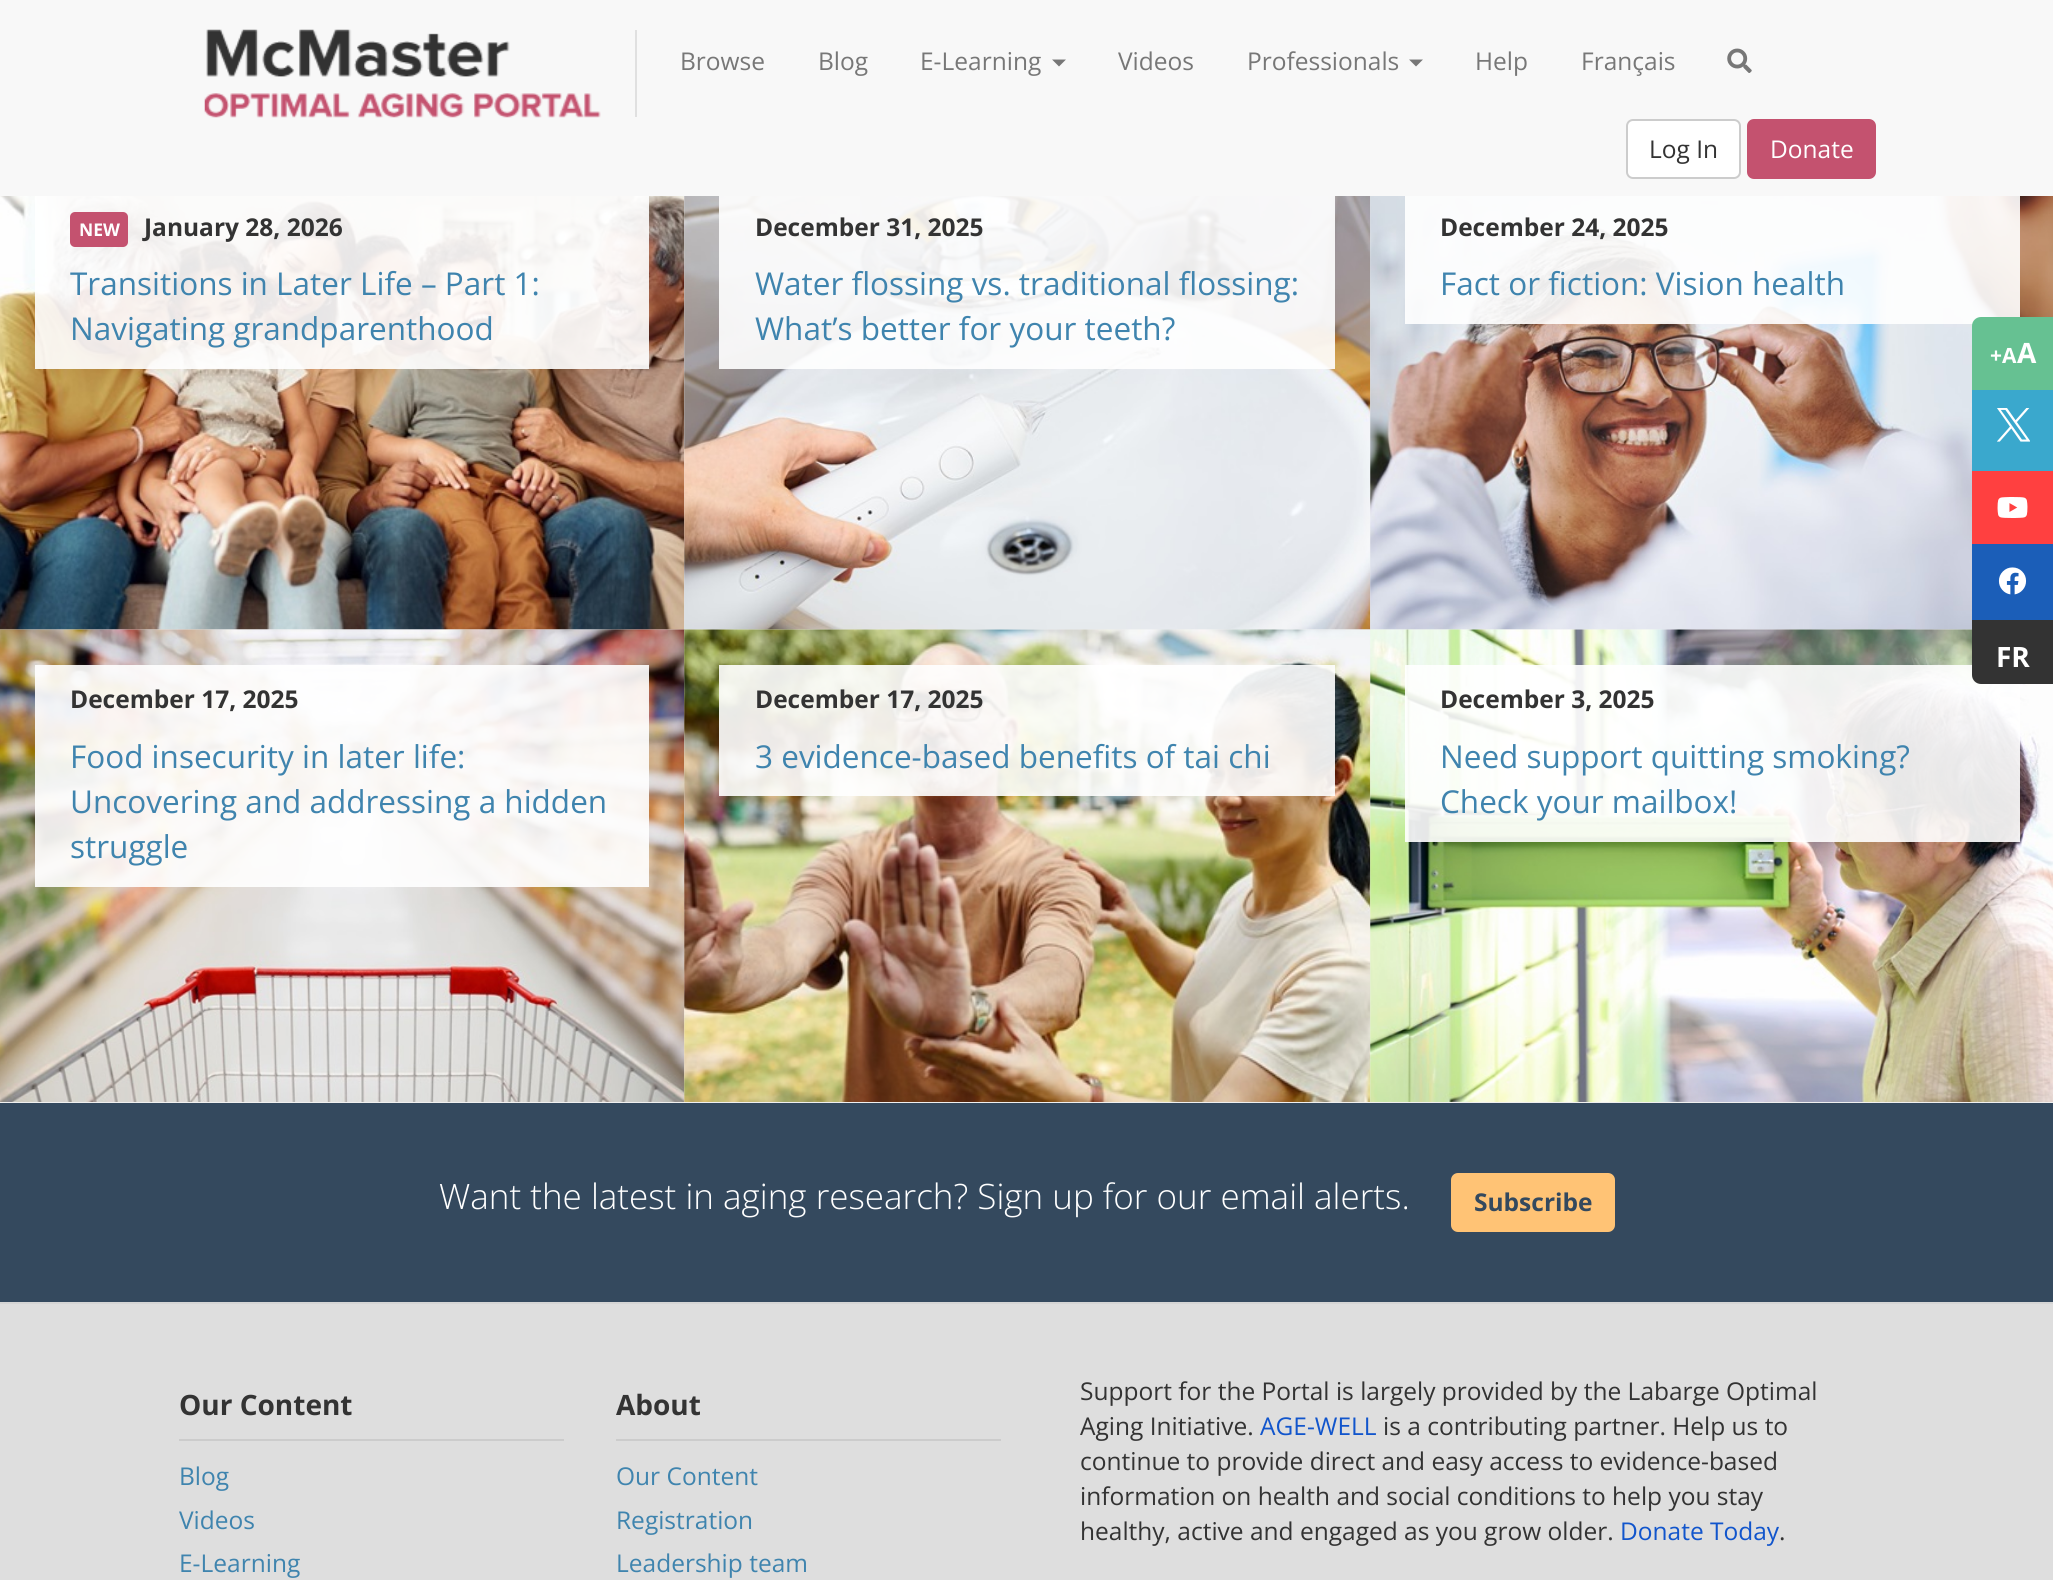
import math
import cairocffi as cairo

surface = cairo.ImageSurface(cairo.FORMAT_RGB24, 2053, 1580)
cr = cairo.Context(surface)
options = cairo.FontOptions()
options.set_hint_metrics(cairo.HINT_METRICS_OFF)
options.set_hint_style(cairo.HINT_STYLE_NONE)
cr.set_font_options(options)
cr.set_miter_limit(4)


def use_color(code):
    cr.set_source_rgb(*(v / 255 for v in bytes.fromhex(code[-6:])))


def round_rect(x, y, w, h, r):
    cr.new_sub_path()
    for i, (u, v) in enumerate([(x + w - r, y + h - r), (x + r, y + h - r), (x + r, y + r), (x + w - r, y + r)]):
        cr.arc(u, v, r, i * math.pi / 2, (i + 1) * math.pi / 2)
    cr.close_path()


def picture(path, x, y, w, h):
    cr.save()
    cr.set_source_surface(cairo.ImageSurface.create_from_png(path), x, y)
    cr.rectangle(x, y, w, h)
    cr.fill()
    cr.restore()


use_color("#f0f0f0")
cr.paint()
use_color("#f8f8f8")
cr.rectangle(0, 0, 2053, 196)
cr.fill()
use_color("#e0e0e0")
cr.rectangle(635, 30, 2, 87)
cr.fill()
picture("img1.png", 204, 29, 397, 89)
cr.select_font_face("Open Sans")
cr.set_font_size(24.5)
use_color("#777777")
cr.move_to(680, 70)
cr.show_text("Browse")
cr.move_to(818, 70)
cr.show_text("Blog")
cr.move_to(920, 70)
cr.show_text("E-Learning")
cr.new_path()
cr.move_to(1052, 59.5)
cr.line_to(1066, 59.5)
cr.line_to(1059, 66.5)
cr.close_path()
cr.fill()
cr.move_to(1118, 70)
cr.show_text("Videos")
cr.move_to(1247, 70)
cr.show_text("Professionals")
cr.new_path()
cr.move_to(1409, 59.5)
cr.line_to(1423, 59.5)
cr.line_to(1416, 66.5)
cr.close_path()
cr.fill()
cr.move_to(1475, 70)
cr.show_text("Help")
cr.move_to(1581, 70)
cr.show_text("Français")
picture("img2.png", 1727, 48, 25, 25)
use_color("#ffffff")
round_rect(1627, 120, 113, 58, 6)
cr.fill_preserve()
use_color("#cccccc")
cr.stroke()
use_color("#333333")
cr.move_to(1649, 158)
cr.show_text("Log In")
use_color("#c4526f")
round_rect(1748, 120, 127, 58, 6)
cr.fill_preserve()
cr.stroke()
use_color("#ffffff")
cr.move_to(1770, 158)
cr.show_text("Donate")
picture("img3.png", 0, 196, 685, 434)
cr.set_source_rgba(1, 1, 1, 0.9)
cr.rectangle(35, 196, 614, 173)
cr.fill()
use_color("#c4526f")
round_rect(70, 212, 58, 35, 5)
cr.fill()
cr.select_font_face("Open Sans", cairo.FONT_SLANT_NORMAL, cairo.FONT_WEIGHT_BOLD)
cr.set_font_size(17.5)
use_color("#ffffff")
cr.move_to(79, 236)
cr.show_text("NEW")
cr.set_font_size(24.5)
use_color("#333333")
cr.move_to(144, 236)
cr.show_text("January 28, 2026")
cr.select_font_face("Open Sans")
cr.set_font_size(31.5)
use_color("#3f84ae")
cr.move_to(70, 295)
cr.show_text("Transitions in Later Life – Part 1:")
cr.move_to(70, 340)
cr.show_text("Navigating grandparenthood")
picture("img4.png", 684, 196, 687, 434)
cr.set_source_rgba(1, 1, 1, 0.9)
cr.rectangle(719, 196, 616, 173)
cr.fill()
cr.select_font_face("Open Sans", cairo.FONT_SLANT_NORMAL, cairo.FONT_WEIGHT_BOLD)
cr.set_font_size(24.5)
use_color("#333333")
cr.move_to(755, 236)
cr.show_text("December 31, 2025")
cr.select_font_face("Open Sans")
cr.set_font_size(31.5)
use_color("#3f84ae")
cr.move_to(755, 295)
cr.show_text("Water flossing vs. traditional flossing:")
cr.move_to(755, 340)
cr.show_text("What’s better for your teeth?")
picture("img5.png", 1370, 196, 683, 434)
cr.set_source_rgba(1, 1, 1, 0.9)
cr.rectangle(1405, 196, 615, 128)
cr.fill()
cr.select_font_face("Open Sans", cairo.FONT_SLANT_NORMAL, cairo.FONT_WEIGHT_BOLD)
cr.set_font_size(24.5)
use_color("#333333")
cr.move_to(1440, 236)
cr.show_text("December 24, 2025")
cr.select_font_face("Open Sans")
cr.set_font_size(31.5)
use_color("#3f84ae")
cr.move_to(1440, 295)
cr.show_text("Fact or fiction: Vision health")
picture("img6.png", 0, 629, 685, 473)
cr.set_source_rgba(1, 1, 1, 0.9)
cr.rectangle(35, 665, 614, 222)
cr.fill()
cr.select_font_face("Open Sans", cairo.FONT_SLANT_NORMAL, cairo.FONT_WEIGHT_BOLD)
cr.set_font_size(24.5)
use_color("#333333")
cr.move_to(70, 708)
cr.show_text("December 17, 2025")
cr.select_font_face("Open Sans")
cr.set_font_size(31.5)
use_color("#3f84ae")
cr.move_to(70, 768)
cr.show_text("Food insecurity in later life:")
cr.move_to(70, 813)
cr.show_text("Uncovering and addressing a hidden")
cr.move_to(70, 858)
cr.show_text("struggle")
picture("img7.png", 684, 629, 687, 473)
cr.set_source_rgba(1, 1, 1, 0.9)
cr.rectangle(719, 665, 616, 131)
cr.fill()
cr.select_font_face("Open Sans", cairo.FONT_SLANT_NORMAL, cairo.FONT_WEIGHT_BOLD)
cr.set_font_size(24.5)
use_color("#333333")
cr.move_to(755, 708)
cr.show_text("December 17, 2025")
cr.select_font_face("Open Sans")
cr.set_font_size(31.5)
use_color("#3f84ae")
cr.move_to(755, 768)
cr.show_text("3 evidence-based benefits of tai chi")
picture("img8.png", 1370, 629, 683, 473)
cr.set_source_rgba(1, 1, 1, 0.9)
cr.rectangle(1405, 665, 615, 177)
cr.fill()
cr.select_font_face("Open Sans", cairo.FONT_SLANT_NORMAL, cairo.FONT_WEIGHT_BOLD)
cr.set_font_size(24.5)
use_color("#333333")
cr.move_to(1440, 708)
cr.show_text("December 3, 2025")
cr.select_font_face("Open Sans")
cr.set_font_size(31.5)
use_color("#3f84ae")
cr.move_to(1440, 768)
cr.show_text("Need support quitting smoking?")
cr.move_to(1440, 813)
cr.show_text("Check your mailbox!")
use_color("#66c192")
cr.new_path()
cr.move_to(1981, 317)
cr.line_to(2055, 317)
cr.line_to(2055, 390)
cr.line_to(1972, 390)
cr.line_to(1972, 326)
cr.curve_to(1972, 321, 1976, 317, 1981, 317)
cr.close_path()
cr.fill()
cr.select_font_face("Open Sans", cairo.FONT_SLANT_NORMAL, cairo.FONT_WEIGHT_BOLD)
cr.set_font_size(21)
use_color("#ffffff")
cr.move_to(1990, 363)
cr.show_text("+A")
cr.set_font_size(28)
cr.move_to(2017, 363)
cr.show_text("A")
use_color("#3aa8cd")
cr.rectangle(1972, 390, 81, 81)
cr.fill()
picture("img9.png", 1997, 408, 33, 34)
use_color("#ff4040")
cr.rectangle(1972, 471, 81, 73)
cr.fill()
picture("img10.png", 1997, 497, 31, 21)
use_color("#1b5eb8")
cr.rectangle(1972, 544, 81, 76)
cr.fill()
picture("img11.png", 1998, 567, 29, 28)
use_color("#333333")
cr.new_path()
cr.move_to(1972, 620)
cr.line_to(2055, 620)
cr.line_to(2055, 684)
cr.line_to(1981, 684)
cr.curve_to(1976, 684, 1972, 680, 1972, 675)
cr.close_path()
cr.fill()
use_color("#ffffff")
cr.move_to(1996, 667)
cr.show_text("FR")
use_color("#34495e")
cr.rectangle(0, 1103, 2053, 199)
cr.fill()
cr.select_font_face("Open Sans Light")
cr.set_font_size(35)
use_color("#ffffff")
cr.move_to(439, 1209)
cr.show_text("Want the latest in aging research? Sign up for our email alerts.")
use_color("#ffc375")
round_rect(1452, 1174, 162, 57, 6)
cr.fill_preserve()
cr.stroke()
cr.select_font_face("Open Sans", cairo.FONT_SLANT_NORMAL, cairo.FONT_WEIGHT_BOLD)
cr.set_font_size(24.5)
use_color("#34495e")
cr.move_to(1474, 1211)
cr.show_text("Subscribe")
use_color("#dedede")
cr.rectangle(0, 1304, 2053, 276)
cr.fill()
use_color("#d5d5d5")
cr.rectangle(0, 1302, 2053, 2)
cr.fill()
use_color("#cccccc")
cr.rectangle(179, 1439, 385, 2)
cr.fill()
cr.set_font_size(28)
use_color("#333333")
cr.move_to(179, 1415)
cr.show_text("Our Content")
cr.select_font_face("Open Sans")
cr.set_font_size(24.5)
use_color("#3f84ae")
cr.move_to(179, 1485)
cr.show_text("Blog")
cr.move_to(179, 1529)
cr.show_text("Videos")
cr.move_to(179, 1572)
cr.show_text("E-Learning")
use_color("#cccccc")
cr.rectangle(616, 1439, 385, 2)
cr.fill()
cr.select_font_face("Open Sans", cairo.FONT_SLANT_NORMAL, cairo.FONT_WEIGHT_BOLD)
cr.set_font_size(28)
use_color("#333333")
cr.move_to(616, 1415)
cr.show_text("About")
cr.select_font_face("Open Sans")
cr.set_font_size(24.5)
use_color("#3f84ae")
cr.move_to(616, 1485)
cr.show_text("Our Content")
cr.move_to(616, 1529)
cr.show_text("Registration")
cr.move_to(616, 1572)
cr.show_text("Leadership team")
use_color("#333333")
cr.move_to(1080, 1400)
cr.show_text("Support for the Portal is largely provided by the Labarge Optimal")
cr.move_to(1080, 1435)
cr.show_text("Aging Initiative.")
use_color("#1155cc")
cr.move_to(1260, 1435)
cr.show_text("AGE-WELL")
use_color("#333333")
cr.move_to(1383, 1435)
cr.show_text("is a contributing partner. Help us to")
cr.move_to(1080, 1470)
cr.show_text("continue to provide direct and easy access to evidence-based")
cr.move_to(1080, 1505)
cr.show_text("information on health and social conditions to help you stay")
cr.move_to(1080, 1540)
cr.show_text("healthy, active and engaged as you grow older.")
use_color("#1155cc")
cr.move_to(1620, 1540)
cr.show_text("Donate Today")
use_color("#333333")
cr.move_to(1779, 1540)
cr.show_text(".")
surface.write_to_png("result.png")
